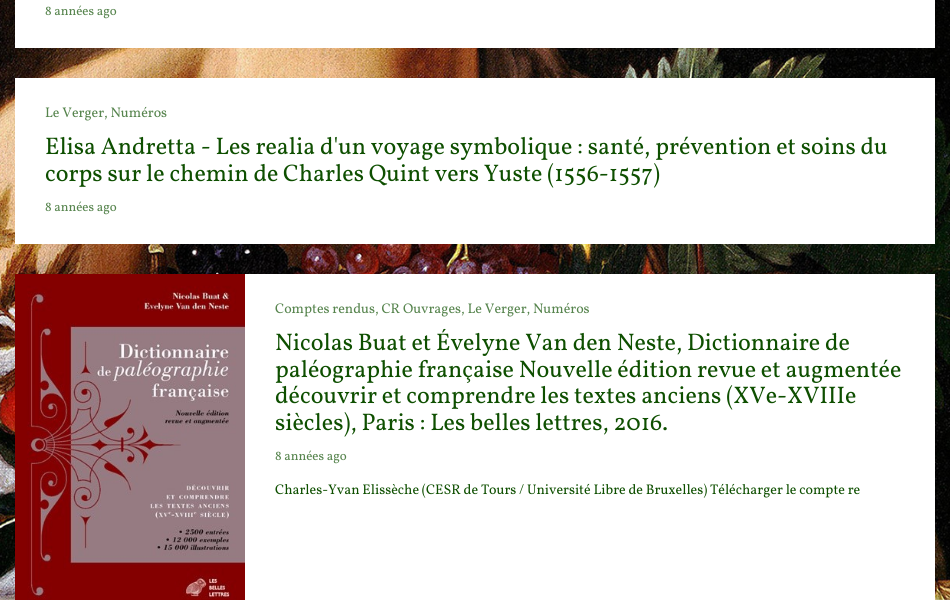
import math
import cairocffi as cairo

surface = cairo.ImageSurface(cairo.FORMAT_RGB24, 950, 600)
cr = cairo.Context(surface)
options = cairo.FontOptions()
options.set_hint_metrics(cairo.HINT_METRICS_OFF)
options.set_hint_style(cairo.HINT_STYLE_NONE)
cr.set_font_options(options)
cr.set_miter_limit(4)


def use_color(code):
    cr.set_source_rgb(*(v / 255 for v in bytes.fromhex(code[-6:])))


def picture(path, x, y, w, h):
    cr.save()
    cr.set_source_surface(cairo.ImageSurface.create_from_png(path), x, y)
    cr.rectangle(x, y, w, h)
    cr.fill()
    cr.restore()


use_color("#ffffff")
cr.paint()
picture("img1.png", 0, 0, 950, 600)
use_color("#ffffff")
cr.rectangle(15, 0, 920, 48)
cr.fill()
cr.select_font_face("Vollkorn")
cr.set_font_size(13)
use_color("#56844d")
cr.move_to(45, 15)
cr.show_text("8 années ago")
use_color("#ffffff")
cr.rectangle(15, 78, 920, 166)
cr.fill()
cr.set_font_size(14)
use_color("#56844d")
cr.move_to(45, 117)
cr.show_text("Le Verger, Numéros")
cr.set_font_size(24)
use_color("#0e4f00")
cr.move_to(45, 154)
cr.show_text("Elisa Andretta - Les realia d'un voyage symbolique : santé, prévention et soins du")
cr.move_to(45, 181)
cr.show_text("corps sur le chemin de Charles Quint vers Yuste (1556-1557)")
cr.set_font_size(13)
use_color("#56844d")
cr.move_to(45, 211)
cr.show_text("8 années ago")
use_color("#ffffff")
cr.rectangle(245, 274, 690, 326)
cr.fill()
picture("img2.png", 15, 274, 230, 326)
cr.set_font_size(14)
use_color("#56844d")
cr.move_to(275, 313)
cr.show_text("Comptes rendus, CR Ouvrages, Le Verger, Numéros")
cr.set_font_size(24)
use_color("#0e4f00")
cr.move_to(275, 350)
cr.show_text("Nicolas Buat et Évelyne Van den Neste, Dictionnaire de")
cr.move_to(275, 377)
cr.show_text("paléographie française Nouvelle édition revue et augmentée")
cr.move_to(275, 403)
cr.show_text("découvrir et comprendre les textes anciens (XVe-XVIIIe")
cr.move_to(275, 430)
cr.show_text("siècles), Paris : Les belles lettres, 2016.")
cr.set_font_size(13)
use_color("#56844d")
cr.move_to(275, 460)
cr.show_text("8 années ago")
cr.set_font_size(14)
use_color("#0e4f00")
cr.move_to(275, 494)
cr.show_text("Charles-Yvan Elissèche (CESR de Tours / Université Libre de Bruxelles) Télécharger le compte re")
surface.write_to_png("result.png")
